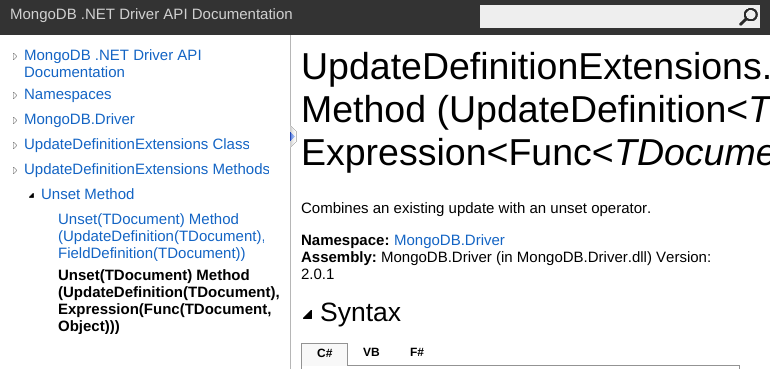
import math
import cairocffi as cairo

surface = cairo.ImageSurface(cairo.FORMAT_RGB24, 770, 369)
cr = cairo.Context(surface)
options = cairo.FontOptions()
options.set_hint_metrics(cairo.HINT_METRICS_OFF)
options.set_hint_style(cairo.HINT_STYLE_NONE)
cr.set_font_options(options)
cr.set_miter_limit(4)


def use_color(code):
    cr.set_source_rgb(*(v / 255 for v in bytes.fromhex(code[-6:])))


def picture(path, x, y, w, h):
    cr.save()
    cr.set_source_surface(cairo.ImageSurface.create_from_png(path), x, y)
    cr.rectangle(x, y, w, h)
    cr.fill()
    cr.restore()


use_color("#ffffff")
cr.paint()
use_color("#333333")
cr.rectangle(0, 0, 770, 35)
cr.fill()
cr.select_font_face("Liberation Sans")
cr.set_font_size(15)
use_color("#d0d0d0")
cr.move_to(10, 19)
cr.show_text("MongoDB .NET Driver API Documentation")
use_color("#eeeeee")
cr.rectangle(480, 5, 280, 23)
cr.fill()
picture("img1.png", 739, 8, 19, 18)
use_color("#b6b6b6")
cr.rectangle(290, 35, 1, 334)
cr.fill()
picture("img2.png", 13, 53, 4, 7)
use_color("#1364c4")
cr.move_to(24, 60)
cr.show_text("MongoDB .NET Driver API")
cr.move_to(24, 77)
cr.show_text("Documentation")
picture("img2.png", 13, 92, 4, 7)
cr.move_to(24, 99)
cr.show_text("Namespaces")
picture("img2.png", 13, 117, 4, 7)
cr.move_to(24, 124)
cr.show_text("MongoDB.Driver")
picture("img2.png", 13, 142, 4, 7)
cr.move_to(24, 149)
cr.show_text("UpdateDefinitionExtensions Class")
picture("img2.png", 13, 167, 4, 7)
cr.move_to(24, 174)
cr.show_text("UpdateDefinitionExtensions Methods")
picture("img3.png", 29, 193, 5, 5)
cr.move_to(41, 199)
cr.show_text("Unset Method")
cr.move_to(58, 224)
cr.show_text("Unset(TDocument) Method")
cr.move_to(58, 241)
cr.show_text("(UpdateDefinition(TDocument),")
cr.save()
cr.rectangle(58, 210, 232, 51)
cr.clip()
cr.move_to(58, 258)
cr.show_text("FieldDefinition(TDocument))")
cr.restore()
cr.select_font_face("Liberation Sans", cairo.FONT_SLANT_NORMAL, cairo.FONT_WEIGHT_BOLD)
use_color("#000000")
cr.move_to(58, 280)
cr.show_text("Unset(TDocument) Method")
cr.move_to(58, 297)
cr.show_text("(UpdateDefinition(TDocument),")
cr.move_to(58, 314)
cr.show_text("Expression(Func(TDocument,")
cr.save()
cr.rectangle(58, 266, 232, 68)
cr.clip()
cr.move_to(58, 331)
cr.show_text("Object)))")
cr.restore()
picture("img4.png", 290, 125, 7, 23)
cr.select_font_face("Liberation Sans")
cr.set_font_size(37.5)
cr.move_to(301, 79)
cr.show_text("UpdateDefinitionExtensions.")
cr.move_to(301, 122)
cr.show_text("Method (UpdateDefinition<")
cr.select_font_face("Liberation Sans", cairo.FONT_SLANT_ITALIC)
cr.move_to(748, 122)
cr.show_text("T")
cr.select_font_face("Liberation Sans")
cr.move_to(301, 165)
cr.show_text("Expression<Func<")
cr.select_font_face("Liberation Sans", cairo.FONT_SLANT_ITALIC)
cr.move_to(614, 165)
cr.show_text("TDocume")
cr.select_font_face("Liberation Sans")
cr.set_font_size(15)
cr.move_to(301, 213)
cr.show_text("Combines an existing update with an unset operator.")
cr.select_font_face("Liberation Sans", cairo.FONT_SLANT_NORMAL, cairo.FONT_WEIGHT_BOLD)
cr.move_to(301, 245)
cr.show_text("Namespace:")
cr.select_font_face("Liberation Sans")
use_color("#1364c4")
cr.move_to(394, 245)
cr.show_text("MongoDB.Driver")
cr.select_font_face("Liberation Sans", cairo.FONT_SLANT_NORMAL, cairo.FONT_WEIGHT_BOLD)
use_color("#000000")
cr.move_to(301, 262)
cr.show_text("Assembly:")
cr.select_font_face("Liberation Sans")
cr.move_to(381, 262)
cr.show_text("MongoDB.Driver (in MongoDB.Driver.dll) Version:")
cr.move_to(301, 279)
cr.show_text("2.0.1")
picture("img5.png", 303, 310, 9, 9)
cr.set_font_size(26.5)
cr.move_to(320, 321)
cr.show_text("Syntax")
cr.rectangle(301.5, 365.5, 438, 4)
use_color("#939393")
cr.set_line_width(1)
cr.stroke()
use_color("#f8f8f8")
cr.rectangle(302, 344, 45, 22)
cr.fill()
use_color("#939393")
cr.rectangle(301, 343, 47, 1)
cr.fill()
cr.rectangle(347, 343, 1, 23)
cr.fill()
cr.rectangle(301, 343, 1, 23)
cr.fill()
cr.select_font_face("Liberation Sans", cairo.FONT_SLANT_NORMAL, cairo.FONT_WEIGHT_BOLD)
cr.set_font_size(12)
use_color("#000000")
cr.move_to(317, 357)
cr.show_text("C#")
cr.move_to(363, 356)
cr.show_text("VB")
cr.move_to(410, 356)
cr.show_text("F#")
surface.write_to_png("result.png")
